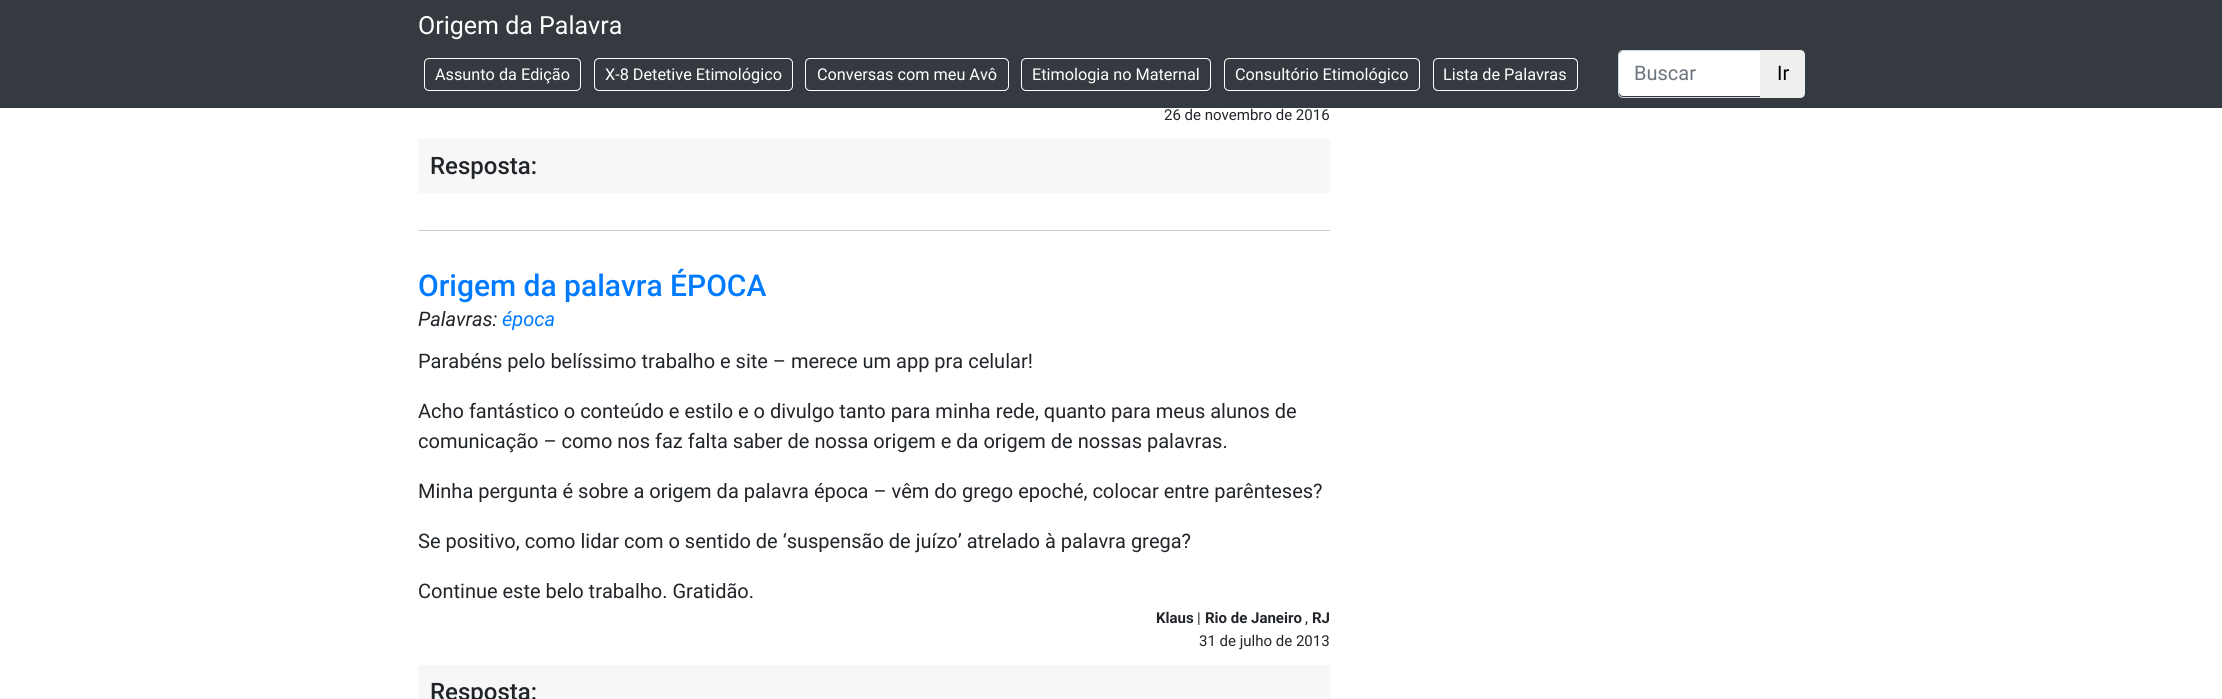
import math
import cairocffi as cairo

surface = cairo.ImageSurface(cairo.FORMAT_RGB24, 2222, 699)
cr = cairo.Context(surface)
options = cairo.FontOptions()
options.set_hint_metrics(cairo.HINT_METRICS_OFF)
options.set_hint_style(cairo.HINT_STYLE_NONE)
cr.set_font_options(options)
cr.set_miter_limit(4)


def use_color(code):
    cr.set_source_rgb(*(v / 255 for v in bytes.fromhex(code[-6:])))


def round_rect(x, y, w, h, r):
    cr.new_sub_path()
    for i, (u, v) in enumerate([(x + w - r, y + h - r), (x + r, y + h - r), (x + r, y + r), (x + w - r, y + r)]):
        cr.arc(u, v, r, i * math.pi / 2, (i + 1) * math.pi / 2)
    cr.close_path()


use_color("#ffffff")
cr.paint()
use_color("#343a40")
cr.rectangle(0, 0, 2222, 108)
cr.fill()
cr.select_font_face("Roboto")
cr.set_font_size(25)
use_color("#ffffff")
cr.move_to(418, 34)
cr.show_text("Origem da Palavra")
round_rect(424.5, 58.5, 156, 32, 4.5)
cr.set_line_width(1)
cr.stroke()
cr.set_font_size(16.25)
cr.move_to(435, 80)
cr.show_text("Assunto da Edição")
round_rect(594.5, 58.5, 198, 32, 4.5)
cr.stroke()
cr.move_to(605, 80)
cr.show_text("X-8 Detetive Etimológico")
round_rect(805.5, 58.5, 203, 32, 4.5)
cr.stroke()
cr.move_to(817, 80)
cr.show_text("Conversas com meu Avô")
round_rect(1021.5, 58.5, 189, 32, 4.5)
cr.stroke()
cr.move_to(1032, 80)
cr.show_text("Etimologia no Maternal")
round_rect(1224.5, 58.5, 195, 32, 4.5)
cr.stroke()
cr.move_to(1235, 80)
cr.show_text("Consultório Etimológico")
round_rect(1433.5, 58.5, 144, 32, 4.5)
cr.stroke()
cr.move_to(1443, 80)
cr.show_text("Lista de Palavras")
cr.new_path()
cr.move_to(1623, 51)
cr.line_to(1760, 51)
cr.line_to(1760, 96)
cr.line_to(1623, 96)
cr.curve_to(1621, 96, 1619, 94, 1619, 92)
cr.line_to(1619, 55)
cr.curve_to(1619, 53, 1621, 51, 1623, 51)
cr.close_path()
cr.fill()
cr.new_path()
cr.move_to(1623, 50.5)
cr.line_to(1760.5, 50.5)
cr.line_to(1760.5, 97.5)
cr.line_to(1623, 97.5)
cr.curve_to(1620.5, 97.5, 1618.5, 95.5, 1618.5, 93)
cr.line_to(1618.5, 55)
cr.curve_to(1618.5, 52.5, 1620.5, 50.5, 1623, 50.5)
cr.close_path()
use_color("#ced4da")
cr.stroke()
cr.set_font_size(20)
use_color("#6c757d")
cr.move_to(1634, 80)
cr.show_text("Buscar")
use_color("#efefef")
cr.new_path()
cr.move_to(1760, 50)
cr.line_to(1800, 50)
cr.curve_to(1803, 50, 1805, 52, 1805, 55)
cr.line_to(1805, 93)
cr.curve_to(1805, 96, 1803, 98, 1800, 98)
cr.line_to(1760, 98)
cr.close_path()
cr.fill()
use_color("#000000")
cr.move_to(1777, 80)
cr.show_text("Ir")
use_color("#cccccc")
cr.rectangle(418, 230, 912, 1)
cr.fill()
cr.set_font_size(15)
use_color("#212529")
cr.move_to(1164, 120)
cr.show_text("26 de novembro de 2016")
use_color("#f7f7f7")
cr.rectangle(418, 139, 912, 54)
cr.fill()
cr.select_font_face("Roboto Medium")
cr.set_font_size(24)
use_color("#212529")
cr.move_to(430, 174)
cr.show_text("Resposta:")
cr.set_font_size(30)
use_color("#007bff")
cr.move_to(418, 296)
cr.show_text("Origem da palavra ÉPOCA")
cr.select_font_face("Roboto", cairo.FONT_SLANT_ITALIC)
cr.set_font_size(20)
use_color("#212529")
cr.move_to(418, 326)
cr.show_text("Palavras:")
use_color("#007bff")
cr.move_to(502, 326)
cr.show_text("época")
cr.select_font_face("Roboto")
use_color("#212529")
cr.move_to(418, 368)
cr.show_text("Parabéns pelo belíssimo trabalho e site – merece um app pra celular!")
cr.move_to(418, 418)
cr.show_text("Acho fantástico o conteúdo e estilo e o divulgo tanto para minha rede, quanto para meus alunos de")
cr.move_to(418, 448)
cr.show_text("comunicação – como nos faz falta saber de nossa origem e da origem de nossas palavras.")
cr.move_to(418, 498)
cr.show_text("Minha pergunta é sobre a origem da palavra época – vêm do grego epoché, colocar entre parênteses?")
cr.move_to(418, 548)
cr.show_text("Se positivo, como lidar com o sentido de ‘suspensão de juízo’ atrelado à palavra grega?")
cr.move_to(418, 598)
cr.show_text("Continue este belo trabalho. Gratidão.")
cr.select_font_face("Roboto", cairo.FONT_SLANT_NORMAL, cairo.FONT_WEIGHT_BOLD)
cr.set_font_size(15)
cr.move_to(1156, 623)
cr.show_text("Klaus")
cr.select_font_face("Roboto")
cr.move_to(1197, 623)
cr.show_text("|")
cr.select_font_face("Roboto", cairo.FONT_SLANT_NORMAL, cairo.FONT_WEIGHT_BOLD)
cr.move_to(1205, 623)
cr.show_text("Rio de Janeiro")
cr.select_font_face("Roboto")
cr.move_to(1305, 623)
cr.show_text(",")
cr.select_font_face("Roboto", cairo.FONT_SLANT_NORMAL, cairo.FONT_WEIGHT_BOLD)
cr.move_to(1312, 623)
cr.show_text("RJ")
cr.select_font_face("Roboto")
cr.move_to(1199, 646)
cr.show_text("31 de julho de 2013")
use_color("#f7f7f7")
cr.rectangle(418, 665, 912, 34)
cr.fill()
cr.select_font_face("Roboto Medium")
cr.set_font_size(24)
use_color("#212529")
cr.move_to(430, 700)
cr.show_text("Resposta:")
surface.write_to_png("result.png")
